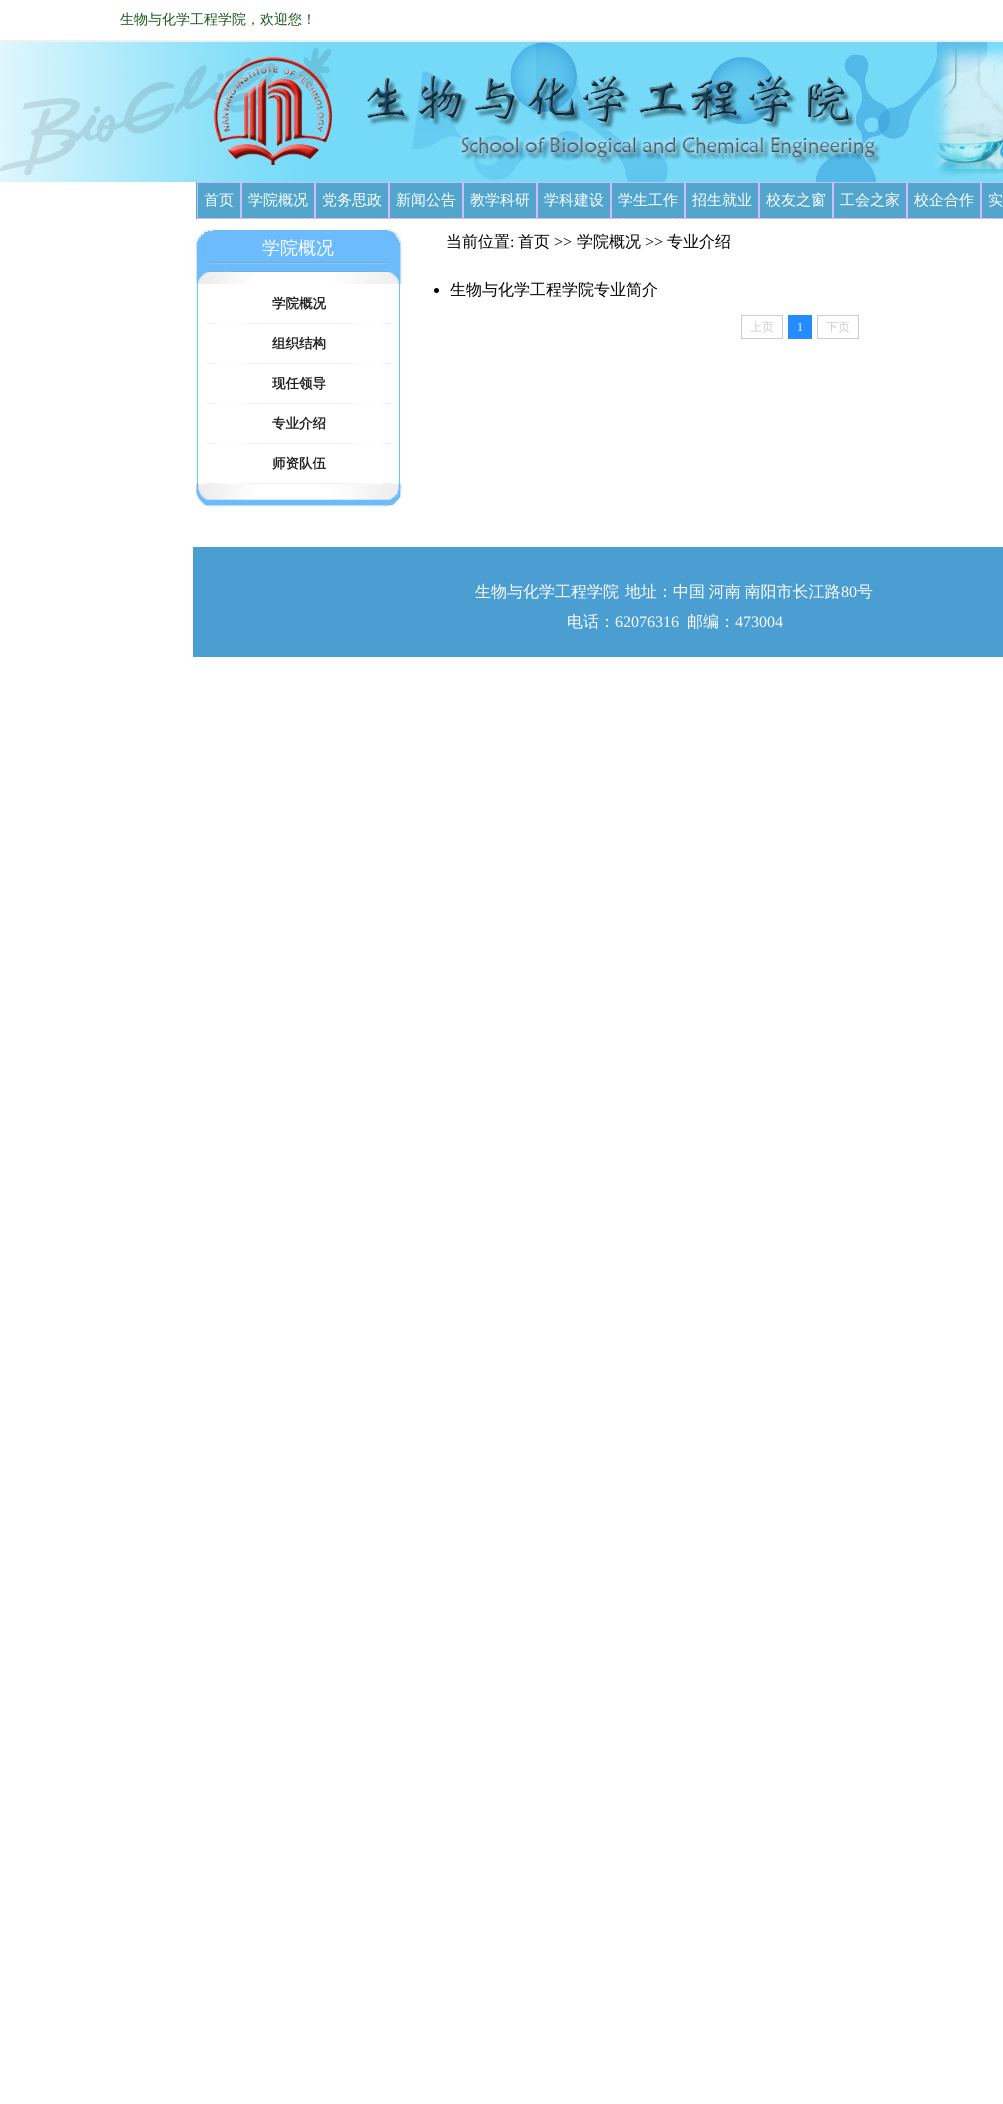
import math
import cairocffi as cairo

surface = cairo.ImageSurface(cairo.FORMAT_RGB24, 1003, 2104)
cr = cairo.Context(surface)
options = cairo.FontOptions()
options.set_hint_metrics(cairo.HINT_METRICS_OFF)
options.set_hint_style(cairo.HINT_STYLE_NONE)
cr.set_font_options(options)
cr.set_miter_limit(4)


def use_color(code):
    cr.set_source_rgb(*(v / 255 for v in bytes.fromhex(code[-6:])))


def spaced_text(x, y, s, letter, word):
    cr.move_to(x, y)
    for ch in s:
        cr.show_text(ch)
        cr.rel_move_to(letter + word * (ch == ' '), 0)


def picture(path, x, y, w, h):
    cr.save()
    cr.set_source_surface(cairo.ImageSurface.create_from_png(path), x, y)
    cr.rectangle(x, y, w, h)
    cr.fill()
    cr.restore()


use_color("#ffffff")
cr.paint()
cr.select_font_face("WenQuanYi Zen Hei Medium")
cr.set_font_size(14)
use_color("#1a571c")
cr.move_to(120, 24)
cr.show_text("生物与化学工程学院，欢迎您！")
use_color("#f0f0f0")
cr.rectangle(0, 40, 1003, 2)
cr.fill()
picture("img1.png", 0, 42, 1003, 140)
use_color("#52a6ce")
cr.rectangle(196, 182, 807, 37)
cr.fill()
cr.rectangle(197.5, 182.5, 43, 36)
use_color("#cfbbfd")
cr.set_line_width(1)
cr.stroke()
cr.set_font_size(15)
use_color("#ffffff")
cr.move_to(204, 205)
cr.show_text("首页")
cr.rectangle(241.5, 182.5, 73, 36)
use_color("#cfbbfd")
cr.stroke()
use_color("#ffffff")
cr.move_to(248, 205)
cr.show_text("学院概况")
cr.rectangle(315.5, 182.5, 73, 36)
use_color("#cfbbfd")
cr.stroke()
use_color("#ffffff")
cr.move_to(322, 205)
cr.show_text("党务思政")
cr.rectangle(389.5, 182.5, 73, 36)
use_color("#cfbbfd")
cr.stroke()
use_color("#ffffff")
cr.move_to(396, 205)
cr.show_text("新闻公告")
cr.rectangle(463.5, 182.5, 73, 36)
use_color("#cfbbfd")
cr.stroke()
use_color("#ffffff")
cr.move_to(470, 205)
cr.show_text("教学科研")
cr.rectangle(537.5, 182.5, 73, 36)
use_color("#cfbbfd")
cr.stroke()
use_color("#ffffff")
cr.move_to(544, 205)
cr.show_text("学科建设")
cr.rectangle(611.5, 182.5, 73, 36)
use_color("#cfbbfd")
cr.stroke()
use_color("#ffffff")
cr.move_to(618, 205)
cr.show_text("学生工作")
cr.rectangle(685.5, 182.5, 73, 36)
use_color("#cfbbfd")
cr.stroke()
use_color("#ffffff")
cr.move_to(692, 205)
cr.show_text("招生就业")
cr.rectangle(759.5, 182.5, 73, 36)
use_color("#cfbbfd")
cr.stroke()
use_color("#ffffff")
cr.move_to(766, 205)
cr.show_text("校友之窗")
cr.rectangle(833.5, 182.5, 73, 36)
use_color("#cfbbfd")
cr.stroke()
use_color("#ffffff")
cr.move_to(840, 205)
cr.show_text("工会之家")
cr.rectangle(907.5, 182.5, 73, 36)
use_color("#cfbbfd")
cr.stroke()
use_color("#ffffff")
cr.move_to(914, 205)
cr.show_text("校企合作")
cr.rectangle(981.5, 182.5, 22, 36)
use_color("#cfbbfd")
cr.stroke()
use_color("#ffffff")
cr.move_to(988, 205)
cr.show_text("实")
picture("img2.png", 196, 229, 207, 55)
cr.set_font_size(18)
cr.move_to(262, 254)
cr.show_text("学院概况")
use_color("#65cdde")
cr.rectangle(399, 284, 1, 200)
cr.fill()
cr.rectangle(197, 284, 1, 200)
cr.fill()
picture("img3.png", 206, 323, 186, 1)
cr.select_font_face("WenQuanYi Zen Hei", cairo.FONT_SLANT_NORMAL, cairo.FONT_WEIGHT_BOLD)
cr.set_font_size(13.5)
use_color("#222222")
cr.move_to(272, 308)
cr.show_text("学院概况")
picture("img3.png", 206, 363, 186, 1)
cr.move_to(272, 348)
cr.show_text("组织结构")
picture("img3.png", 206, 403, 186, 1)
cr.move_to(272, 388)
cr.show_text("现任领导")
picture("img3.png", 206, 443, 186, 1)
cr.move_to(272, 428)
cr.show_text("专业介绍")
picture("img3.png", 206, 483, 186, 1)
cr.move_to(272, 468)
cr.show_text("师资队伍")
picture("img4.png", 196, 484, 207, 23)
cr.select_font_face("WenQuanYi Zen Hei Medium")
cr.set_font_size(16)
use_color("#000000")
cr.move_to(446, 247)
cr.show_text("当前位置")
cr.select_font_face("Liberation Serif")
cr.move_to(510, 247)
cr.show_text(":")
cr.select_font_face("WenQuanYi Zen Hei Medium")
cr.move_to(518, 247)
cr.show_text("首页")
cr.select_font_face("Liberation Serif")
cr.move_to(554, 247)
cr.show_text(">>")
cr.select_font_face("WenQuanYi Zen Hei Medium")
cr.move_to(577, 247)
cr.show_text("学院概况")
cr.select_font_face("Liberation Serif")
cr.move_to(645, 247)
cr.show_text(">>")
cr.select_font_face("WenQuanYi Zen Hei Medium")
cr.move_to(667, 247)
cr.show_text("专业介绍")
cr.new_path()
cr.arc(436.5, 290.5, 2.5, 0, 2 * math.pi)
cr.fill()
cr.move_to(450, 295)
cr.show_text("生物与化学工程学院专业简介")
cr.rectangle(741.5, 315.5, 41, 23)
use_color("#cccccc")
cr.stroke()
cr.set_font_size(12)
cr.move_to(750, 331)
cr.show_text("上页")
use_color("#258cff")
cr.rectangle(788, 315, 24, 24)
cr.fill()
cr.select_font_face("Liberation Serif")
use_color("#ffffff")
cr.move_to(797, 331)
cr.show_text("1")
cr.rectangle(817.5, 315.5, 41, 23)
use_color("#cccccc")
cr.stroke()
cr.select_font_face("WenQuanYi Zen Hei Medium")
cr.move_to(826, 331)
cr.show_text("下页")
use_color("#4b9ed2")
cr.rectangle(193, 547, 810, 110)
cr.fill()
cr.set_font_size(16)
use_color("#ffffff")
cr.move_to(475, 597)
cr.show_text("生物与化学工程学院")
spaced_text(625, 597, "地址：中国 河南 南阳市长江路", 0, -1)
cr.select_font_face("Liberation Serif")
cr.move_to(841, 597)
cr.show_text("80")
cr.select_font_face("WenQuanYi Zen Hei Medium")
cr.move_to(857, 597)
cr.show_text("号")
cr.move_to(567, 627)
cr.show_text("电话：")
cr.select_font_face("Liberation Serif")
cr.move_to(615, 627)
cr.show_text("62076316")
cr.select_font_face("WenQuanYi Zen Hei Medium")
cr.move_to(687, 627)
cr.show_text("邮编：")
cr.select_font_face("Liberation Serif")
cr.move_to(735, 627)
cr.show_text("473004")
surface.write_to_png("result.png")
